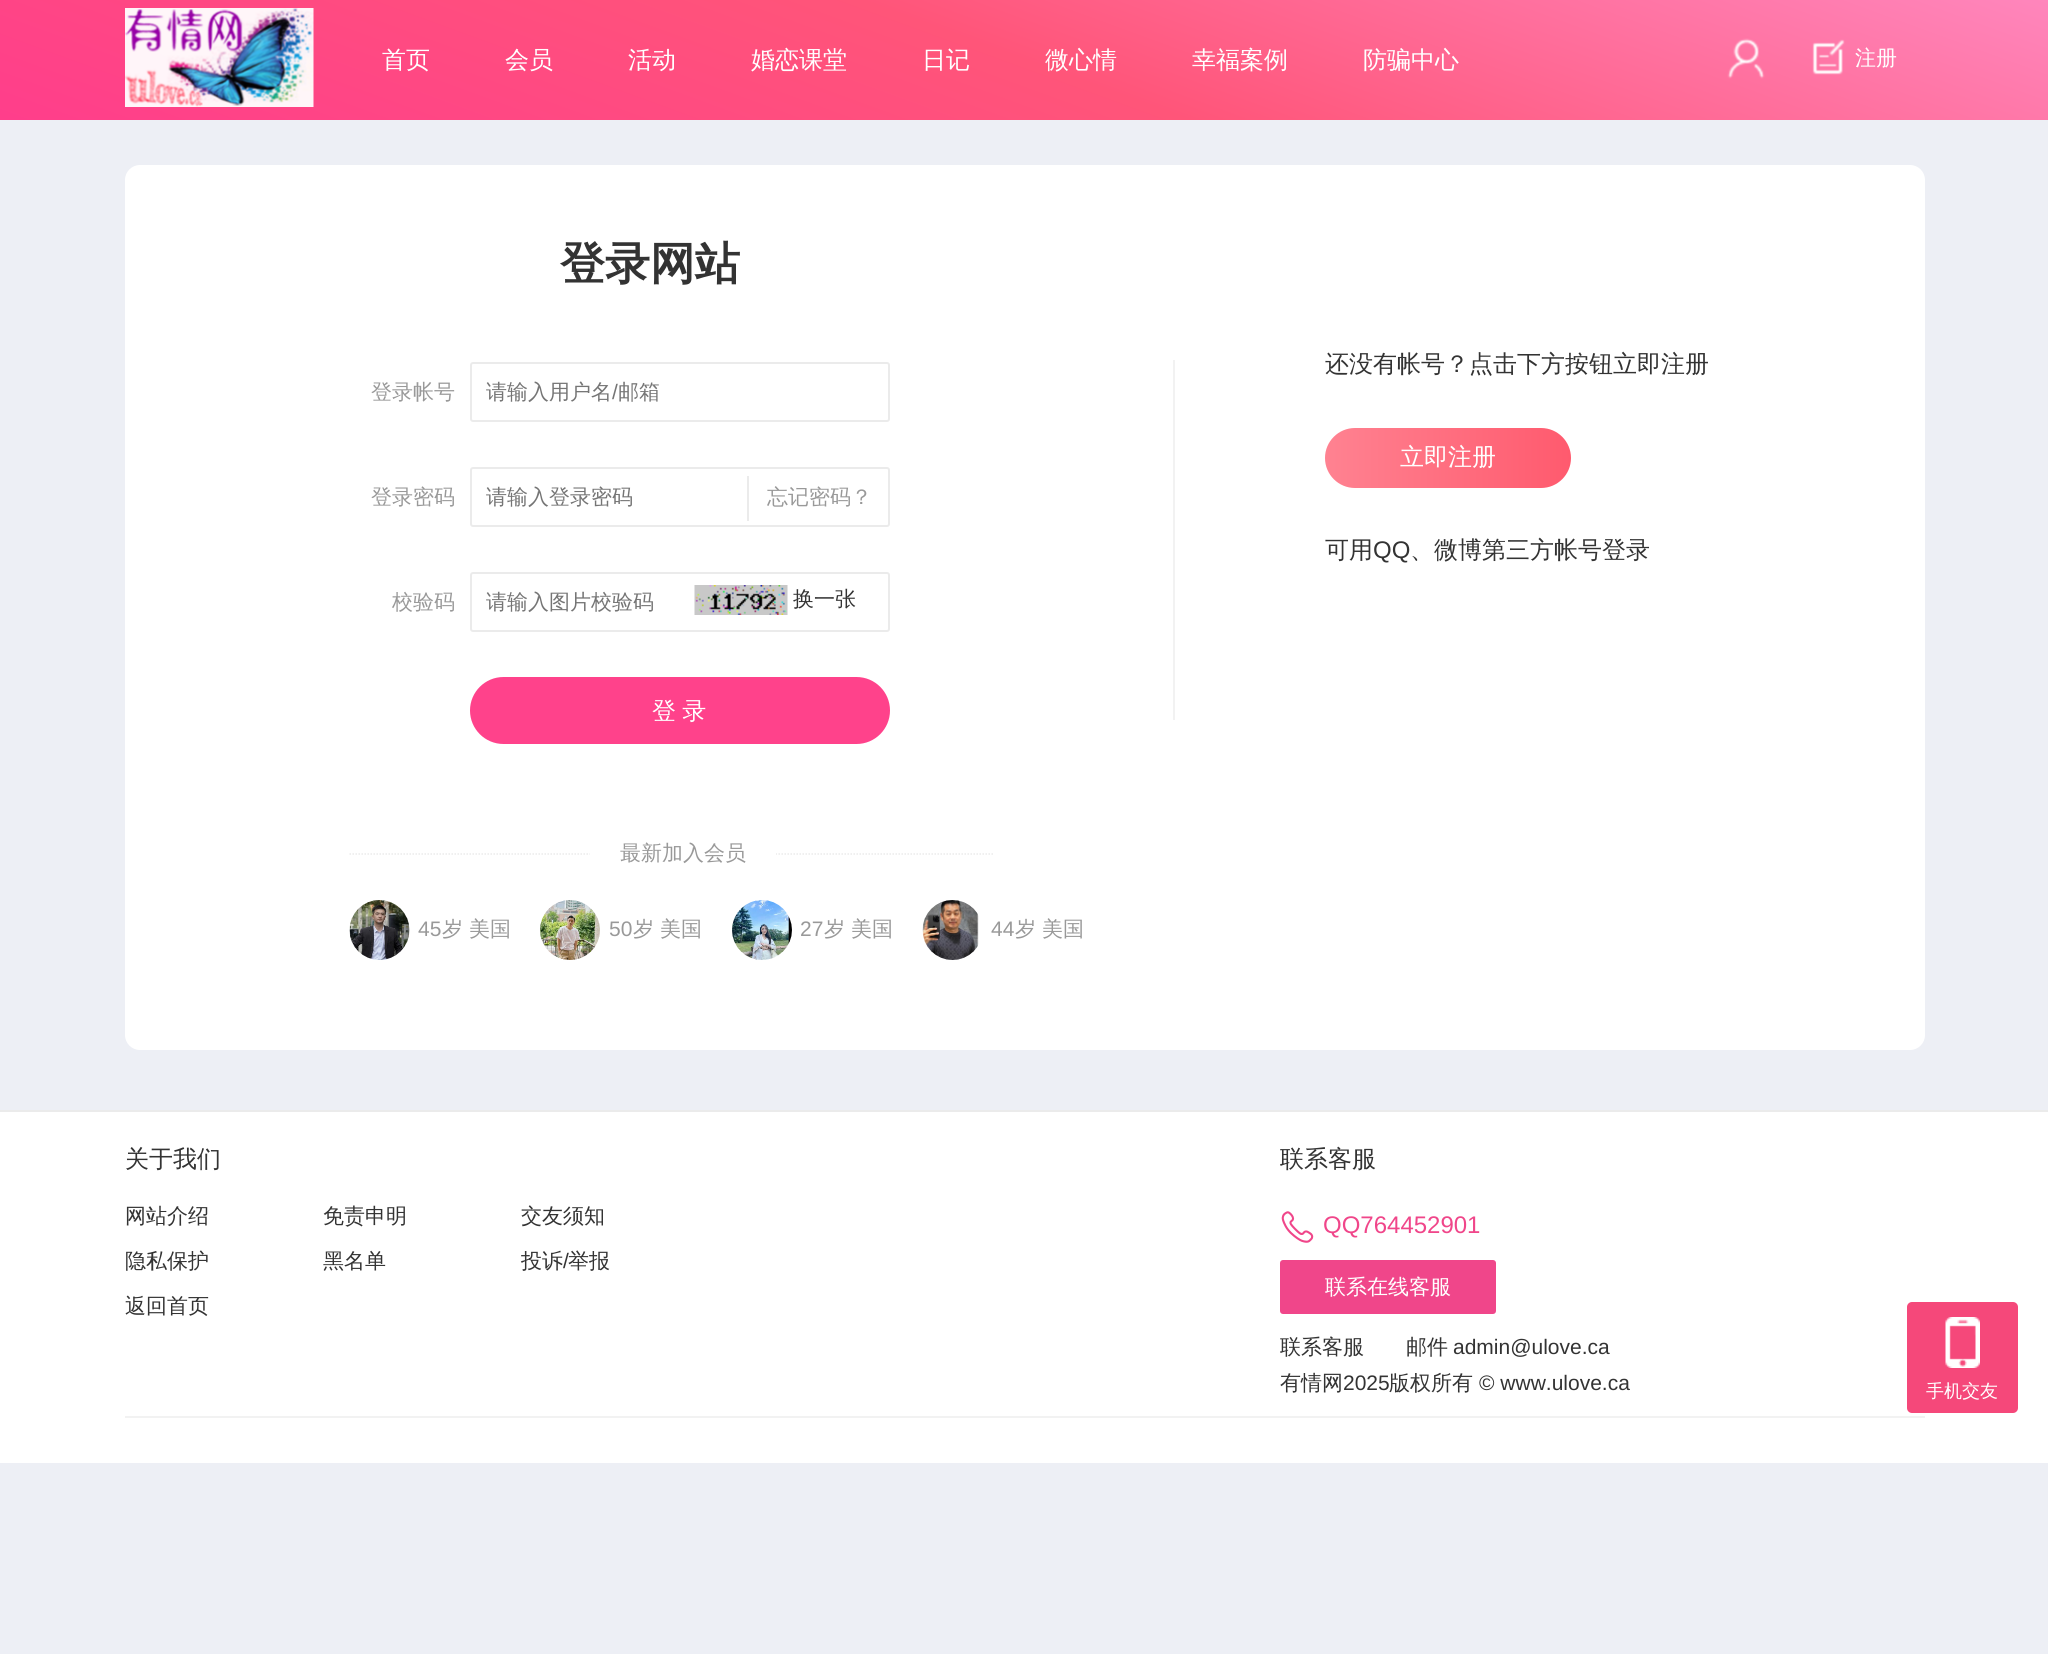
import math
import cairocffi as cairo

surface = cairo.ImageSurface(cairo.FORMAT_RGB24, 2048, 1654)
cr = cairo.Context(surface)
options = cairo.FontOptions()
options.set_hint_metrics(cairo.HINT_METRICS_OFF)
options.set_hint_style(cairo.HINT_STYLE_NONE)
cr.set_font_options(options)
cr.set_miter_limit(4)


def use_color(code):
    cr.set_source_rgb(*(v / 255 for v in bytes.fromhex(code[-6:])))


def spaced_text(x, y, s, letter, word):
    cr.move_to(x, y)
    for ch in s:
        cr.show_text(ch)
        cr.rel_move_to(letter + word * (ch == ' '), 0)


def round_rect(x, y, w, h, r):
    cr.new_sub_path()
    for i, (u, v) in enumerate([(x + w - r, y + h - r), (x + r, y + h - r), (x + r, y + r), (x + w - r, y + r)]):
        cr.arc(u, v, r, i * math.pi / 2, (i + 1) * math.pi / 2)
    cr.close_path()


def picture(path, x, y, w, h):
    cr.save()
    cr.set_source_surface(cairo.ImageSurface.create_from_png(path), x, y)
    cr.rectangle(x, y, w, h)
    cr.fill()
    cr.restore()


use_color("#edeff5")
cr.paint()
gradient = cairo.LinearGradient(885, 442, 1164, -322)
gradient.add_color_stop_rgba(0, 1, 0.243, 0.545, 1)
gradient.add_color_stop_rgba(0.5, 1, 0.333, 0.475, 1)
gradient.add_color_stop_rgba(1, 1, 0.525, 0.737, 1)
cr.set_source(gradient)
cr.rectangle(0, 0, 2048, 120)
cr.fill()
picture("img1.png", 125, 8, 189, 99)
cr.select_font_face("WenQuanYi Zen Hei Medium")
cr.set_font_size(24)
use_color("#ffffff")
cr.move_to(382, 68)
cr.show_text("首页")
cr.move_to(505, 68)
cr.show_text("会员")
cr.move_to(628, 68)
cr.show_text("活动")
cr.move_to(751, 68)
cr.show_text("婚恋课堂")
cr.move_to(922, 68)
cr.show_text("日记")
cr.move_to(1045, 68)
cr.show_text("微心情")
cr.move_to(1192, 68)
cr.show_text("幸福案例")
cr.move_to(1363, 68)
cr.show_text("防骗中心")
picture("img2.png", 1727, 38, 38, 41)
picture("img3.png", 1812, 39, 33, 36)
cr.set_font_size(21)
cr.move_to(1855, 65)
cr.show_text("注册")
round_rect(125, 165, 1800, 885, 15)
cr.fill()
cr.select_font_face("WenQuanYi Zen Hei", cairo.FONT_SLANT_NORMAL, cairo.FONT_WEIGHT_BOLD)
cr.set_font_size(45)
use_color("#333333")
cr.move_to(560, 279)
cr.show_text("登录网站")
cr.select_font_face("WenQuanYi Zen Hei Medium")
cr.set_font_size(21)
use_color("#999999")
cr.move_to(371, 399)
cr.show_text("登录帐号")
round_rect(471, 363, 418, 58, 2)
use_color("#ebebeb")
cr.stroke()
use_color("#757575")
cr.move_to(486, 399)
cr.show_text("请输入用户名")
cr.select_font_face("Liberation Sans")
cr.move_to(612, 399)
cr.show_text("/")
cr.select_font_face("WenQuanYi Zen Hei Medium")
cr.move_to(618, 399)
cr.show_text("邮箱")
use_color("#999999")
cr.move_to(371, 504)
cr.show_text("登录密码")
round_rect(471, 468, 418, 58, 2)
use_color("#ebebeb")
cr.stroke()
use_color("#757575")
cr.move_to(486, 504)
cr.show_text("请输入登录密码")
use_color("#ebebeb")
cr.rectangle(747, 476, 2, 45)
cr.fill()
use_color("#999999")
cr.move_to(767, 504)
cr.show_text("忘记密码？")
cr.move_to(392, 609)
cr.show_text("校验码")
round_rect(471, 573, 418, 58, 2)
use_color("#ebebeb")
cr.stroke()
use_color("#757575")
cr.move_to(486, 609)
cr.show_text("请输入图片校验码")
picture("img4.png", 694, 585, 94, 30)
use_color("#333333")
cr.move_to(793, 606)
cr.show_text("换一张")
use_color("#ff428b")
round_rect(470, 677, 420, 67, 33.5)
cr.fill()
cr.set_font_size(24)
use_color("#ffffff")
spaced_text(652, 719, "登 录", 0, -1)
use_color("#f2f2f2")
cr.rectangle(1173, 360, 2, 360)
cr.fill()
cr.new_path()
cr.move_to(349.5, 854)
cr.line_to(994.5, 854)
use_color("#ebebeb")
cr.set_line_width(1.5)
cr.set_dash([1.5, 1.5])
cr.stroke()
use_color("#ffffff")
cr.rectangle(590, 853, 186, 2)
cr.fill()
cr.set_font_size(21)
use_color("#999999")
cr.move_to(620, 860)
cr.show_text("最新加入会员")
picture("img5.png", 349, 900, 61, 60)
cr.select_font_face("Liberation Sans")
cr.move_to(418, 936)
cr.show_text("45")
cr.select_font_face("WenQuanYi Zen Hei Medium")
cr.move_to(442, 936)
cr.show_text("岁")
cr.move_to(469, 936)
cr.show_text("美国")
picture("img6.png", 540, 900, 60, 60)
cr.select_font_face("Liberation Sans")
cr.move_to(609, 936)
cr.show_text("50")
cr.select_font_face("WenQuanYi Zen Hei Medium")
cr.move_to(633, 936)
cr.show_text("岁")
cr.move_to(660, 936)
cr.show_text("美国")
picture("img7.png", 732, 900, 60, 60)
cr.select_font_face("Liberation Sans")
cr.move_to(800, 936)
cr.show_text("27")
cr.select_font_face("WenQuanYi Zen Hei Medium")
cr.move_to(824, 936)
cr.show_text("岁")
cr.move_to(851, 936)
cr.show_text("美国")
picture("img8.png", 922, 900, 57, 60)
cr.select_font_face("Liberation Sans")
cr.move_to(991, 936)
cr.show_text("44")
cr.select_font_face("WenQuanYi Zen Hei Medium")
cr.move_to(1015, 936)
cr.show_text("岁")
cr.move_to(1042, 936)
cr.show_text("美国")
cr.set_font_size(24)
use_color("#333333")
cr.move_to(1325, 372)
cr.show_text("还没有帐号？点击下方按钮立即注册")
gradient = cairo.LinearGradient(1325, 458, 1571, 458)
gradient.add_color_stop_rgba(0, 1, 0.51, 0.569, 1)
gradient.add_color_stop_rgba(1, 1, 0.353, 0.431, 1)
cr.set_source(gradient)
round_rect(1325, 428, 246, 60, 30)
cr.fill()
use_color("#ffffff")
cr.move_to(1400, 465)
cr.show_text("立即注册")
use_color("#333333")
cr.move_to(1325, 558)
cr.show_text("可用")
cr.select_font_face("Liberation Sans")
cr.move_to(1373, 558)
cr.show_text("QQ")
cr.select_font_face("WenQuanYi Zen Hei Medium")
cr.move_to(1410, 558)
cr.show_text("、微博第三方帐号登录")
use_color("#ffffff")
cr.rectangle(0, 1112, 2048, 351)
cr.fill()
use_color("#ebebeb")
cr.rectangle(0, 1110, 2048, 2)
cr.fill()
use_color("#333333")
cr.move_to(125, 1167)
cr.show_text("关于我们")
cr.set_font_size(21)
cr.move_to(125, 1223)
cr.show_text("网站介绍")
cr.move_to(323, 1223)
cr.show_text("免责申明")
cr.move_to(521, 1223)
cr.show_text("交友须知")
cr.move_to(125, 1268)
cr.show_text("隐私保护")
cr.move_to(323, 1268)
cr.show_text("黑名单")
cr.move_to(521, 1268)
cr.show_text("投诉")
cr.select_font_face("Liberation Sans")
cr.move_to(563, 1268)
cr.show_text("/")
cr.select_font_face("WenQuanYi Zen Hei Medium")
cr.move_to(568, 1268)
cr.show_text("举报")
cr.move_to(125, 1313)
cr.show_text("返回首页")
cr.set_font_size(24)
cr.move_to(1280, 1167)
cr.show_text("联系客服")
picture("img9.png", 1281, 1211, 33, 32)
cr.select_font_face("Liberation Sans")
use_color("#f0468a")
cr.move_to(1323, 1233)
cr.show_text("QQ764452901")
round_rect(1280, 1260, 216, 54, 3)
cr.fill()
cr.select_font_face("WenQuanYi Zen Hei Medium")
cr.set_font_size(21)
use_color("#ffffff")
cr.move_to(1325, 1294)
cr.show_text("联系在线客服")
use_color("#333333")
cr.move_to(1280, 1354)
cr.show_text("联系客服　　邮件")
cr.select_font_face("Liberation Sans")
cr.move_to(1453, 1354)
cr.show_text("admin@ulove.ca")
cr.select_font_face("WenQuanYi Zen Hei Medium")
cr.move_to(1280, 1390)
cr.show_text("有情网")
cr.select_font_face("Liberation Sans")
cr.move_to(1343, 1390)
cr.show_text("2025")
cr.select_font_face("WenQuanYi Zen Hei Medium")
cr.move_to(1389, 1390)
cr.show_text("版权所有")
cr.select_font_face("Liberation Sans")
cr.move_to(1479, 1390)
cr.show_text("© www.ulove.ca")
use_color("#f2f2f2")
cr.rectangle(125, 1416, 1800, 2)
cr.fill()
use_color("#f5487a")
round_rect(1907, 1302, 111, 111, 5)
cr.fill()
picture("img10.png", 1945, 1317, 35, 51)
cr.select_font_face("WenQuanYi Zen Hei Medium")
cr.set_font_size(18)
use_color("#ffffff")
cr.move_to(1926, 1397)
cr.show_text("手机交友")
surface.write_to_png("result.png")
